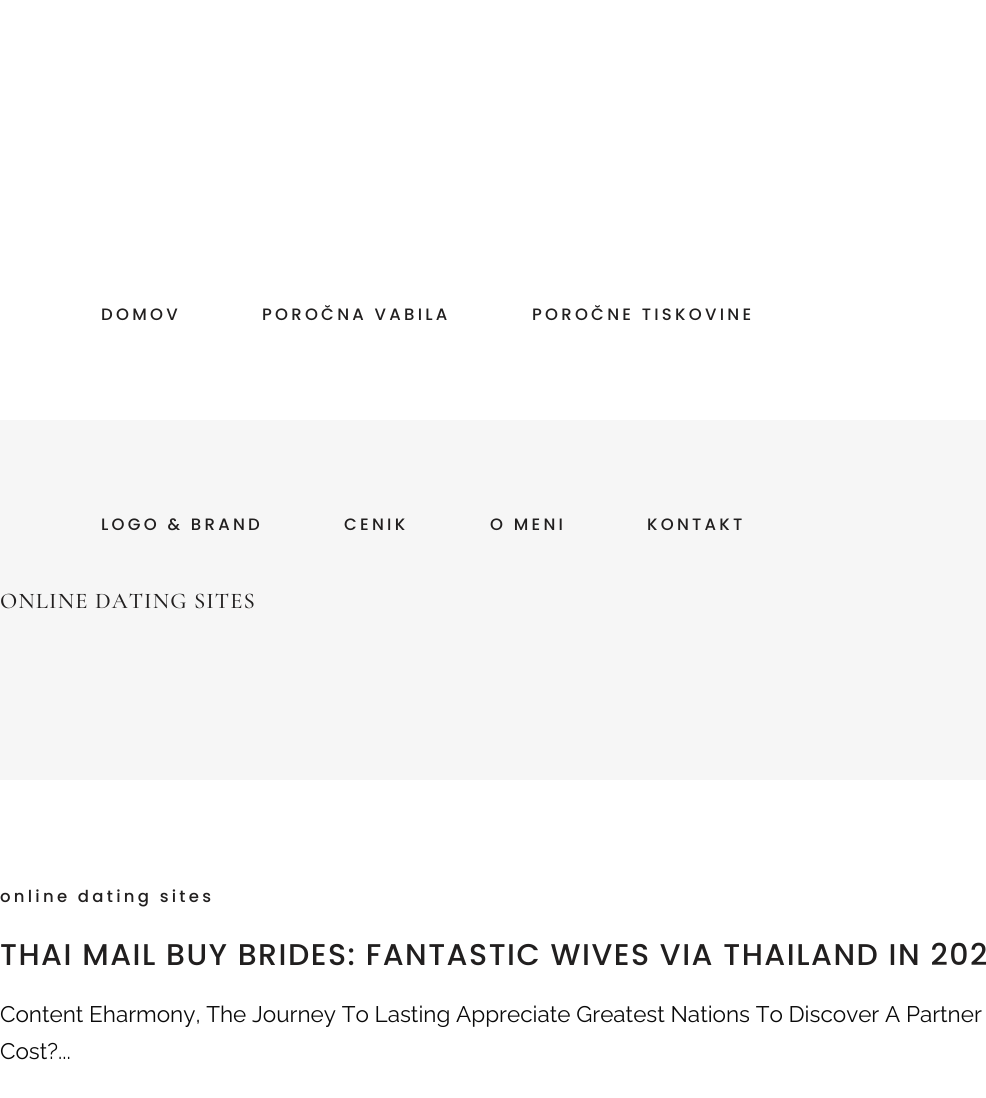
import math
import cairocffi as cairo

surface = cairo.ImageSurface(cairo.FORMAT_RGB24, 986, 1098)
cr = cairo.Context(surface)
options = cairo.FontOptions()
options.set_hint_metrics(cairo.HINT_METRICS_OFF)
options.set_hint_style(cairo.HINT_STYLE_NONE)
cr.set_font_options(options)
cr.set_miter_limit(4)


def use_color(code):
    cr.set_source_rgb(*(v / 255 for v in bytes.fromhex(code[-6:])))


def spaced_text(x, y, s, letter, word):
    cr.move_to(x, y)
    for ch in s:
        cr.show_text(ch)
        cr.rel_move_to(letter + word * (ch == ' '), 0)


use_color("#ffffff")
cr.paint()
cr.select_font_face("Poppins Medium")
cr.set_font_size(16.5)
use_color("#211f1f")
spaced_text(101, 320, "DOMOV", 3.25, 0)
spaced_text(262, 320, "POROČNA VABILA", 3.25, 0)
spaced_text(532, 320, "POROČNE TISKOVINE", 3.25, 0)
use_color("#f6f6f6")
cr.rectangle(0, 420, 986, 360)
cr.fill()
use_color("#211f1f")
spaced_text(101, 530, "LOGO & BRAND", 3.25, 0)
spaced_text(344, 530, "CENIK", 3.25, 0)
spaced_text(490, 530, "O MENI", 3.25, 0)
spaced_text(647, 530, "KONTAKT", 3.25, 0)
cr.select_font_face("Cormorant Garamond Medium")
cr.set_font_size(22.5)
spaced_text(0, 608, "ONLINE DATING SITES", 1.1, 0)
cr.select_font_face("Poppins Medium")
cr.set_font_size(16.5)
spaced_text(0, 902, "online dating sites", 3.25, 0)
cr.set_font_size(30)
spaced_text(0, 965, "THAI MAIL BUY BRIDES: FANTASTIC WIVES VIA THAILAND IN 202", 1.5, 0)
cr.select_font_face("Raleway")
cr.set_font_size(22.5)
use_color("#0a0a0a")
cr.move_to(0, 1022)
cr.show_text("Content Eharmony, The Journey To Lasting Appreciate Greatest Nations To Discover A Partner")
cr.move_to(0, 1059)
cr.show_text("Cost?...")
surface.write_to_png("result.png")
